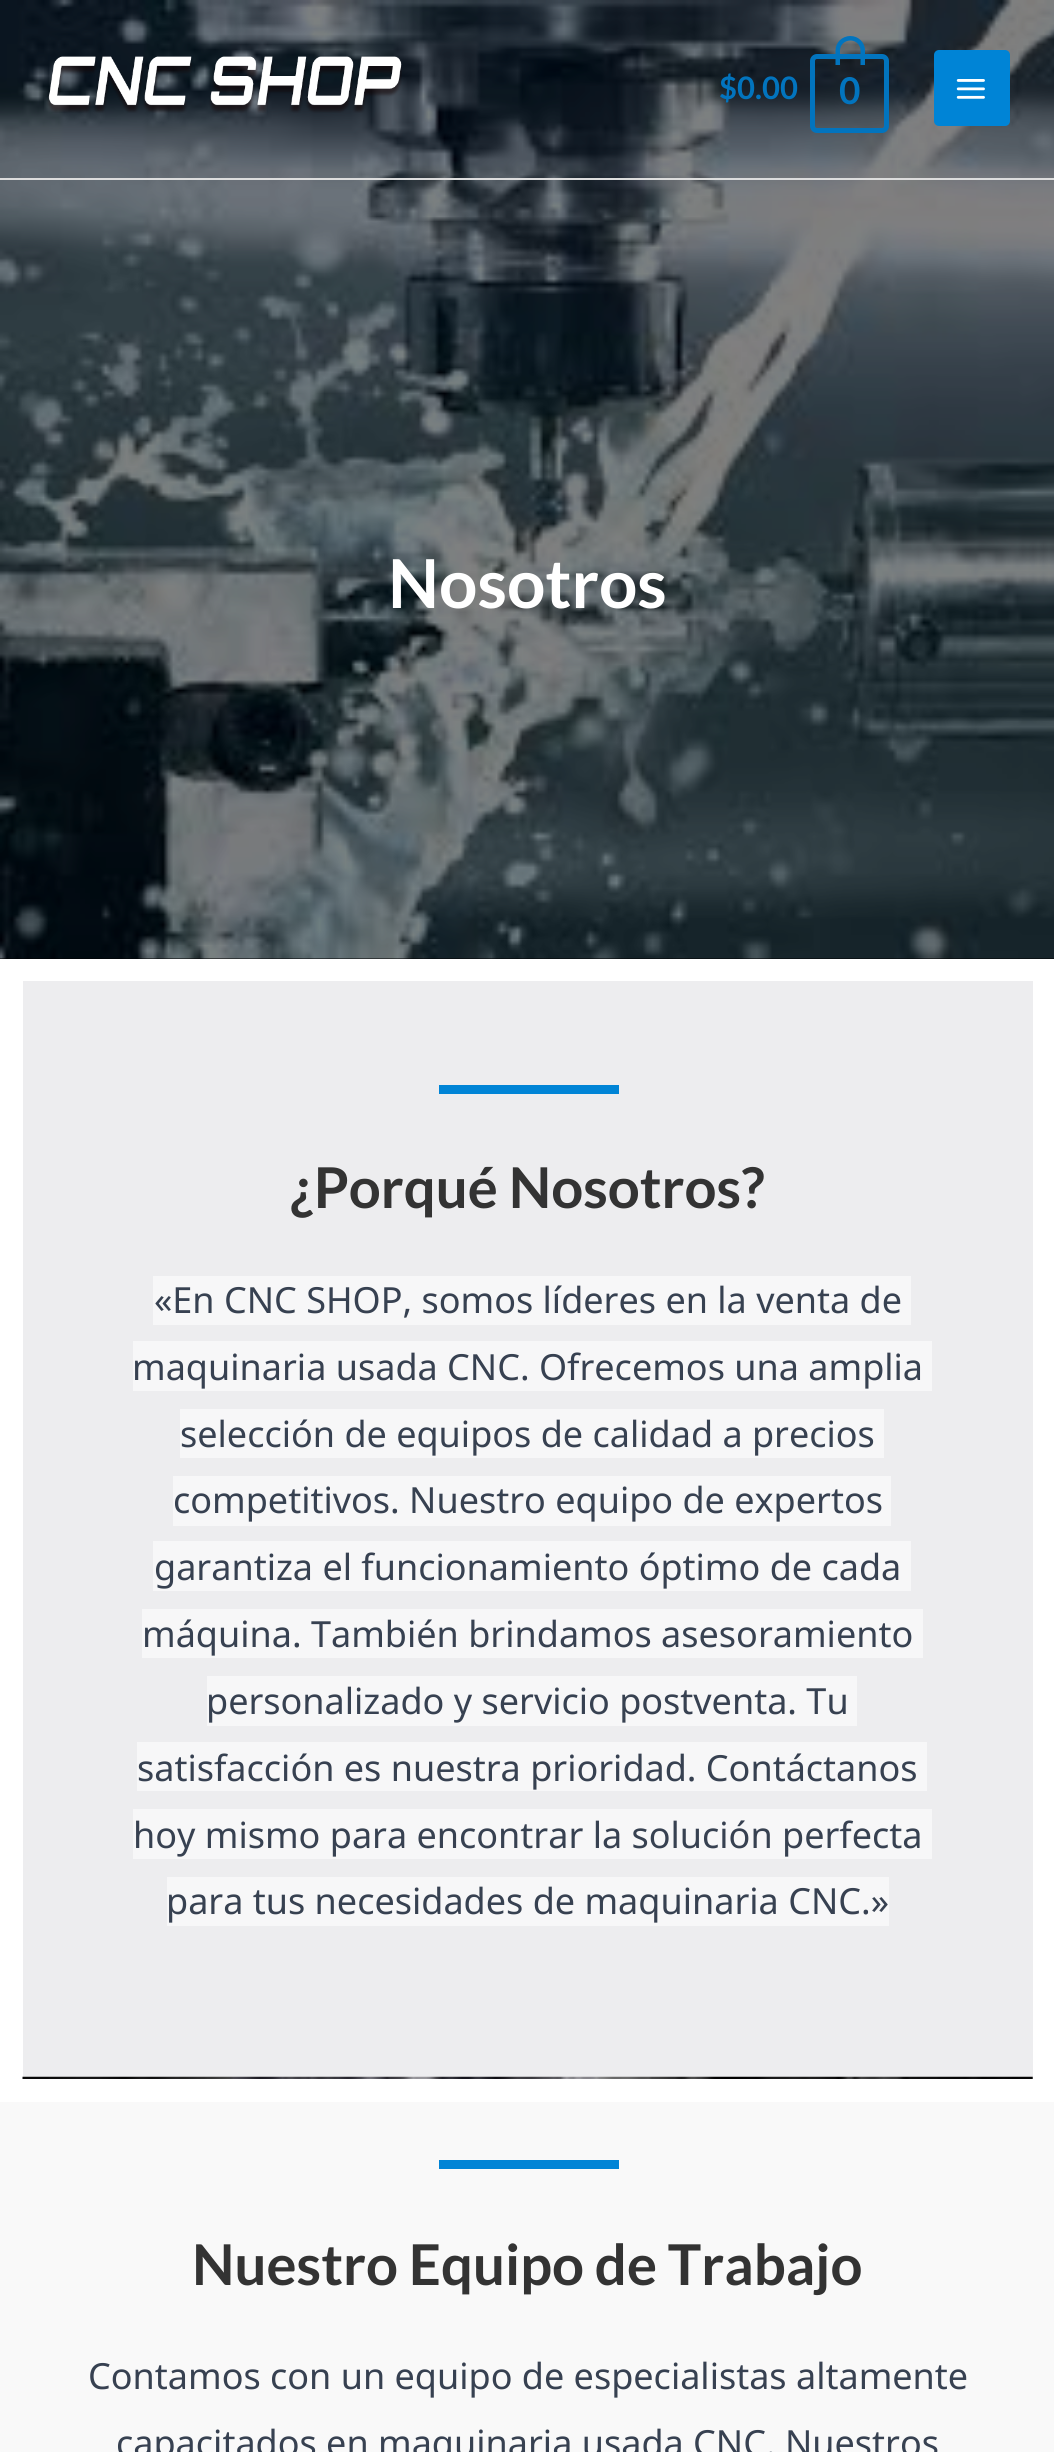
import math
import cairocffi as cairo

surface = cairo.ImageSurface(cairo.FORMAT_RGB24, 1054, 2452)
cr = cairo.Context(surface)
options = cairo.FontOptions()
options.set_hint_metrics(cairo.HINT_METRICS_OFF)
options.set_hint_style(cairo.HINT_STYLE_NONE)
cr.set_font_options(options)
cr.set_miter_limit(4)


def use_color(code):
    cr.set_source_rgb(*(v / 255 for v in bytes.fromhex(code[-6:])))


def round_rect(x, y, w, h, r):
    cr.new_sub_path()
    for i, (u, v) in enumerate([(x + w - r, y + h - r), (x + r, y + h - r), (x + r, y + r), (x + w - r, y + r)]):
        cr.arc(u, v, r, i * math.pi / 2, (i + 1) * math.pi / 2)
    cr.close_path()


def picture(path, x, y, w, h):
    cr.save()
    cr.set_source_surface(cairo.ImageSurface.create_from_png(path), x, y)
    cr.rectangle(x, y, w, h)
    cr.fill()
    cr.restore()


use_color("#ffffff")
cr.paint()
use_color("#000000")
cr.rectangle(0, 958, 1054, 1)
cr.fill()
picture("img3.png", 0, 0, 1054, 959)
use_color("#dddddd")
cr.rectangle(0, 178, 1054, 2)
cr.fill()
picture("img1.png", 47, 56, 355, 57)
cr.select_font_face("Lato", cairo.FONT_SLANT_NORMAL, cairo.FONT_WEIGHT_BOLD)
cr.set_font_size(31)
use_color("#0274be")
cr.move_to(719, 99)
cr.show_text("$0.00")
round_rect(812.5, 56.5, 74, 74, 4.5)
cr.set_line_width(5)
cr.stroke()
cr.set_fill_rule(cairo.FILL_RULE_EVEN_ODD)
cr.new_path()
cr.move_to(850.5, 36)
cr.curve_to(858.5, 36, 865, 42.5, 865, 50.5)
cr.line_to(865, 65)
cr.line_to(835.5, 65)
cr.line_to(835.5, 50.5)
cr.curve_to(835.5, 42.5, 842, 36, 850.5, 36)
cr.close_path()
cr.move_to(850.5, 40.5)
cr.curve_to(856, 40.5, 860.5, 45, 860.5, 50.5)
cr.line_to(860.5, 65)
cr.line_to(840, 65)
cr.line_to(840, 50.5)
cr.curve_to(840, 45, 844.5, 40.5, 850.5, 40.5)
cr.close_path()
cr.fill()
cr.set_font_size(37)
cr.move_to(839, 104)
cr.show_text("0")
use_color("#0084d6")
round_rect(934, 50, 76, 76, 5)
cr.fill()
picture("img2.png", 956, 79, 29, 20)
cr.set_font_size(67.5)
use_color("#ffffff")
cr.move_to(388, 608)
cr.show_text("Nosotros")
use_color("#ededef")
cr.rectangle(23, 981, 1010, 1096)
cr.fill()
use_color("#0084d6")
cr.rectangle(439, 1085, 180, 9)
cr.fill()
cr.set_font_size(56.25)
use_color("#333333")
cr.move_to(290, 1208)
cr.show_text("¿Porqué Nosotros?")
use_color("#f7f7f8")
cr.rectangle(153, 1276, 758, 49)
cr.fill()
cr.select_font_face("Noto Sans")
cr.set_font_size(36)
use_color("#374151")
cr.move_to(154, 1313)
cr.show_text("«En CNC SHOP, somos líderes en la venta de")
use_color("#f7f7f8")
cr.rectangle(133, 1341, 799, 50)
cr.fill()
use_color("#374151")
cr.move_to(132, 1380)
cr.show_text("maquinaria usada CNC. Ofrecemos una amplia")
use_color("#f7f7f8")
cr.rectangle(180, 1409, 704, 49)
cr.fill()
use_color("#374151")
cr.move_to(180, 1447)
cr.show_text("selección de equipos de calidad a precios")
use_color("#f7f7f8")
cr.rectangle(173, 1476, 718, 50)
cr.fill()
use_color("#374151")
cr.move_to(173, 1513)
cr.show_text("competitivos. Nuestro equipo de expertos")
use_color("#f7f7f8")
cr.rectangle(153, 1541, 758, 50)
cr.fill()
use_color("#374151")
cr.move_to(154, 1580)
cr.show_text("garantiza el funcionamiento óptimo de cada")
use_color("#f7f7f8")
cr.rectangle(142, 1609, 781, 49)
cr.fill()
use_color("#374151")
cr.move_to(142, 1647)
cr.show_text("máquina. También brindamos asesoramiento")
use_color("#f7f7f8")
cr.rectangle(207, 1676, 650, 50)
cr.fill()
use_color("#374151")
cr.move_to(206, 1714)
cr.show_text("personalizado y servicio postventa. Tu")
use_color("#f7f7f8")
cr.rectangle(137, 1742, 790, 49)
cr.fill()
use_color("#374151")
cr.move_to(137, 1781)
cr.show_text("satisfacción es nuestra prioridad. Contáctanos")
use_color("#f7f7f8")
cr.rectangle(133, 1809, 799, 50)
cr.fill()
use_color("#374151")
cr.move_to(133, 1848)
cr.show_text("hoy mismo para encontrar la solución perfecta")
use_color("#f7f7f8")
cr.rectangle(167, 1877, 722, 49)
cr.fill()
use_color("#374151")
cr.move_to(166, 1914)
cr.show_text("para tus necesidades de maquinaria CNC.»")
picture("img4.png", 22, 2076, 1011, 3)
use_color("#f9f9f9")
cr.rectangle(0, 2102, 1054, 350)
cr.fill()
use_color("#0084d6")
cr.rectangle(439, 2160, 180, 9)
cr.fill()
cr.select_font_face("Lato", cairo.FONT_SLANT_NORMAL, cairo.FONT_WEIGHT_BOLD)
cr.set_font_size(56.25)
use_color("#333333")
cr.move_to(192, 2285)
cr.show_text("Nuestro Equipo de Trabajo")
cr.select_font_face("Noto Sans")
cr.set_font_size(36)
use_color("#374151")
cr.move_to(88, 2389)
cr.show_text("Contamos con un equipo de especialistas altamente")
cr.move_to(116, 2456)
cr.show_text("capacitados en maquinaria usada CNC. Nuestros")
surface.write_to_png("result.png")
